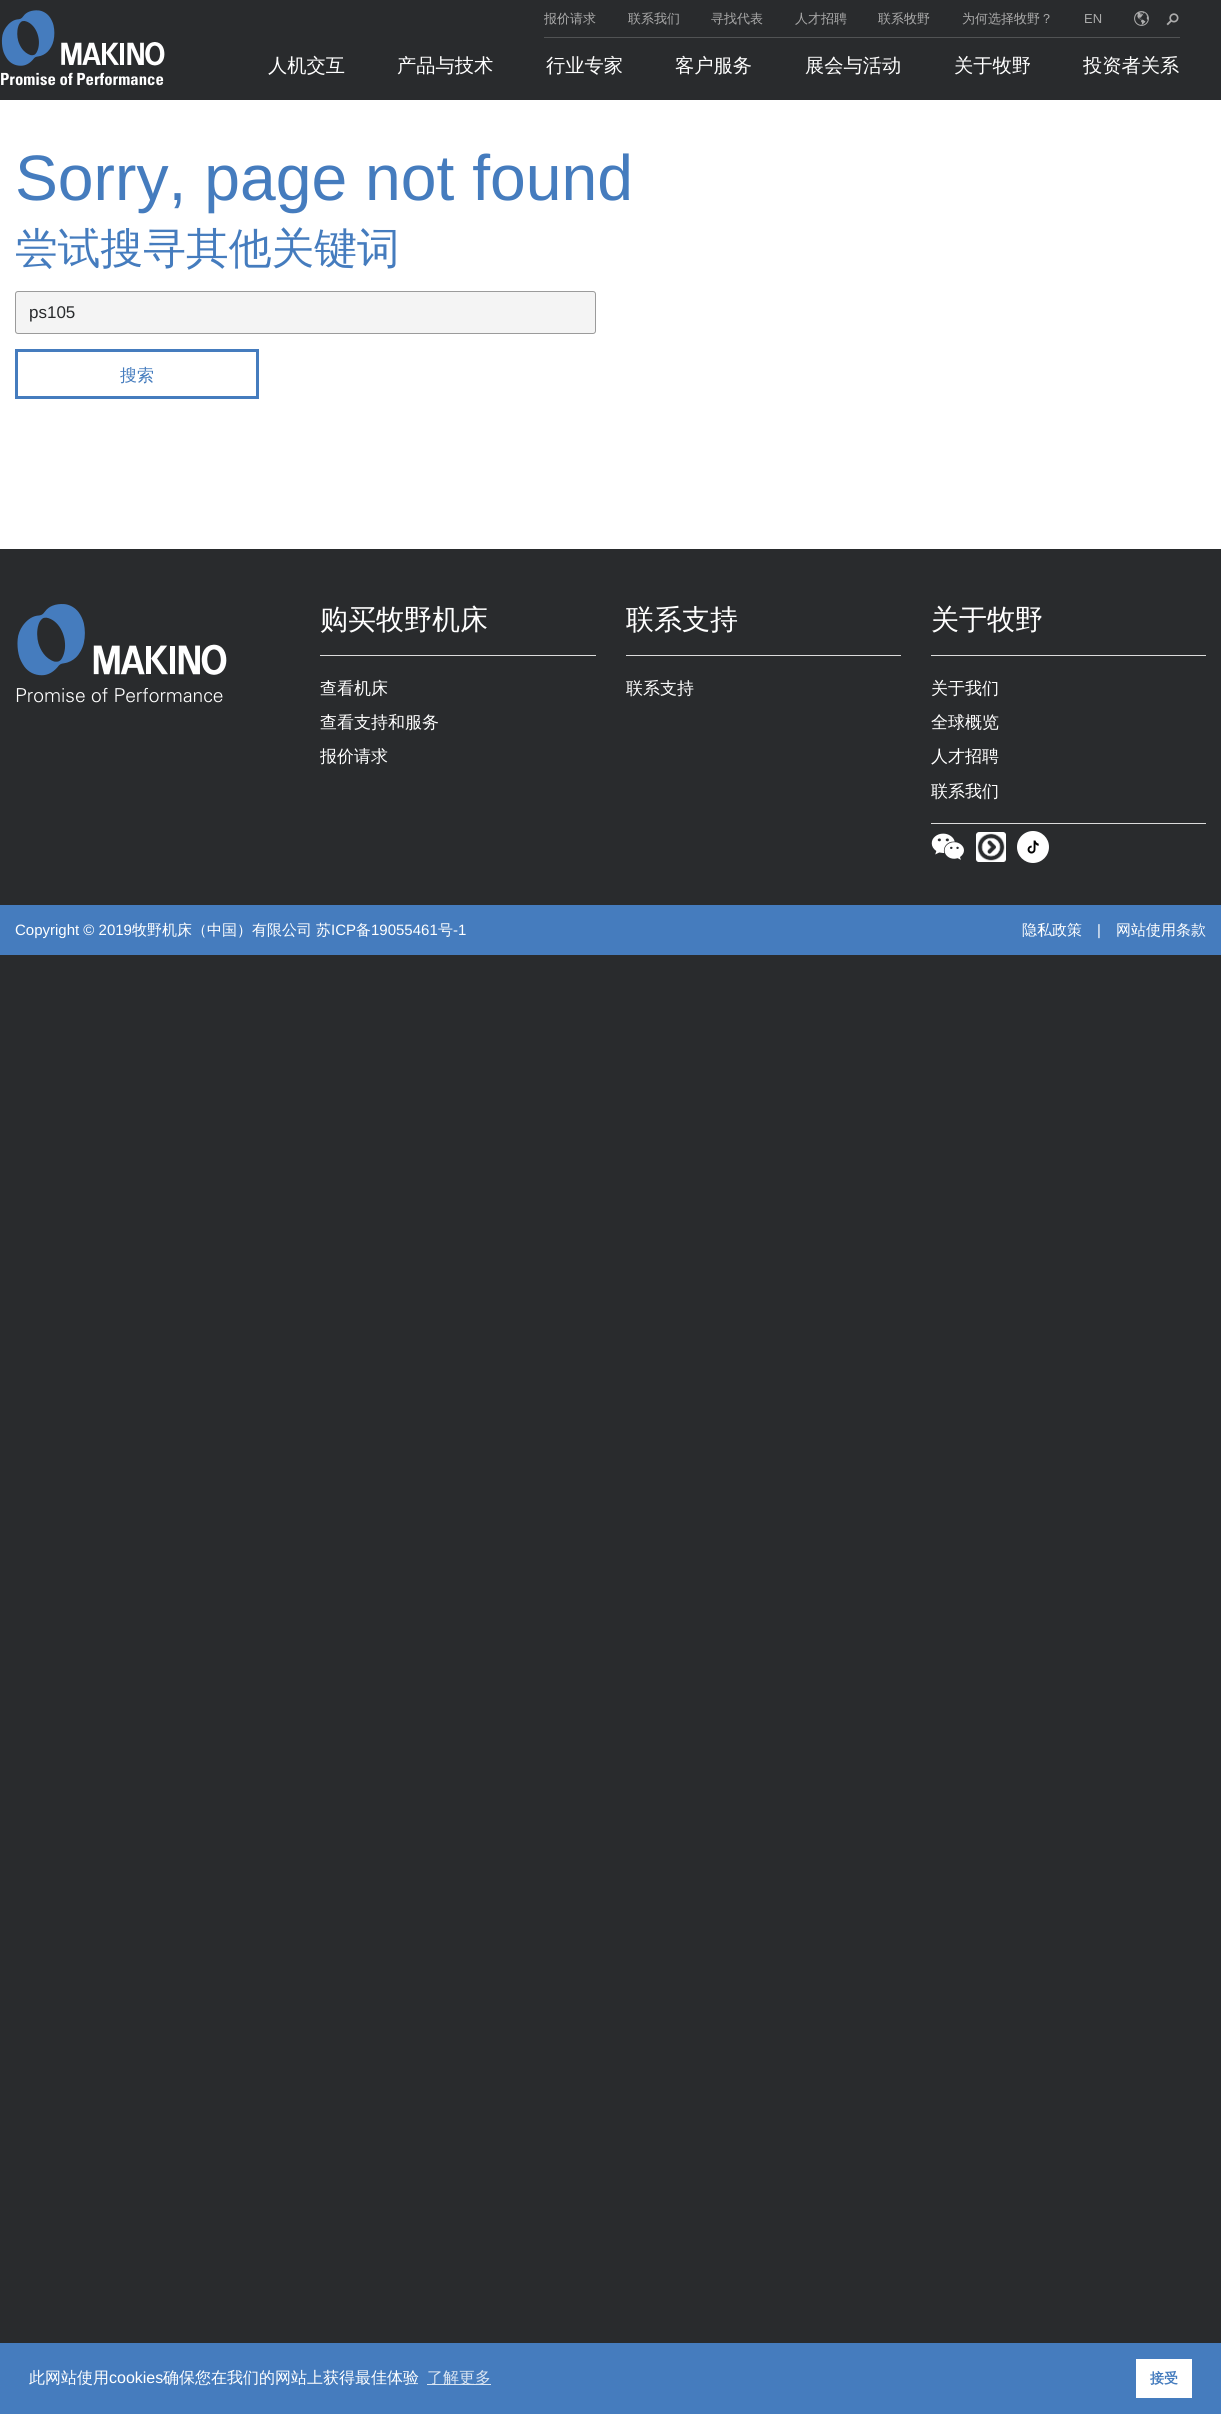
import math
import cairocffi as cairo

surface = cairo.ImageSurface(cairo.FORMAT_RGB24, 1221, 2414)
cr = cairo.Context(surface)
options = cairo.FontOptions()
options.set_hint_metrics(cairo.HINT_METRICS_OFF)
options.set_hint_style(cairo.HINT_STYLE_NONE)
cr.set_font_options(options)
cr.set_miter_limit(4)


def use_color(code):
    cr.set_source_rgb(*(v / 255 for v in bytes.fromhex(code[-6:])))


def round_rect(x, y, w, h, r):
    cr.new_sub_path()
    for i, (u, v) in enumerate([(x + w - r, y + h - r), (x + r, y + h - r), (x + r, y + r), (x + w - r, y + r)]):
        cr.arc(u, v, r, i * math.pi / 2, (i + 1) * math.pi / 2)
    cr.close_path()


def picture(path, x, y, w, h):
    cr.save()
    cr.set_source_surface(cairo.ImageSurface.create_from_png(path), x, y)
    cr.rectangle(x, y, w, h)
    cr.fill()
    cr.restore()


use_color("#292b2d")
cr.paint()
use_color("#515354")
cr.rectangle(544, 37, 574, 1)
cr.fill()
cr.select_font_face("WenQuanYi Zen Hei Medium")
cr.set_font_size(13)
use_color("#ababab")
cr.move_to(544, 23)
cr.show_text("报价请求")
cr.move_to(628, 23)
cr.show_text("联系我们")
cr.move_to(711, 23)
cr.show_text("寻找代表")
cr.move_to(795, 23)
cr.show_text("人才招聘")
cr.move_to(878, 23)
cr.show_text("联系牧野")
cr.move_to(962, 23)
cr.show_text("为何选择牧野？")
picture("img1.png", 1134, 11, 15, 15)
cr.select_font_face("Liberation Sans")
cr.move_to(1084, 23)
cr.show_text("EN")
use_color("#515354")
cr.rectangle(1118, 37, 62, 1)
cr.fill()
picture("img2.png", 1166, 13, 13, 13)
cr.select_font_face("WenQuanYi Zen Hei Medium")
cr.set_font_size(19.25)
use_color("#ffffff")
cr.move_to(268, 72)
cr.show_text("人机交互")
cr.move_to(397, 72)
cr.show_text("产品与技术")
cr.move_to(546, 72)
cr.show_text("行业专家")
cr.move_to(675, 72)
cr.show_text("客户服务")
cr.move_to(805, 72)
cr.show_text("展会与活动")
cr.move_to(954, 72)
cr.show_text("关于牧野")
cr.move_to(1083, 72)
cr.show_text("投资者关系")
picture("img3.png", 1, 10, 164, 56)
cr.select_font_face("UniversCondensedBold")
cr.set_font_size(16.75)
cr.move_to(0, 85)
cr.show_text("Promise of Performance")
cr.rectangle(0, 100, 1221, 449)
cr.fill()
cr.select_font_face("Liberation Sans")
cr.set_font_size(64.25)
use_color("#457cbe")
cr.move_to(15, 200)
cr.show_text("Sorry, page not found")
cr.select_font_face("WenQuanYi Zen Hei Medium")
cr.set_font_size(42.75)
cr.move_to(15, 263)
cr.show_text("尝试搜寻其他关键词")
use_color("#f4f4f4")
round_rect(15.5, 291.5, 580, 42, 2.5)
cr.fill_preserve()
use_color("#9b9b9b")
cr.set_line_width(1)
cr.stroke()
cr.select_font_face("Liberation Sans")
cr.set_font_size(17)
use_color("#292b2d")
cr.move_to(29, 318)
cr.show_text("ps105")
cr.rectangle(16.5, 350.5, 241, 47)
use_color("#457cbe")
cr.set_line_width(3)
cr.stroke()
cr.select_font_face("WenQuanYi Zen Hei Medium")
cr.move_to(120, 381)
cr.show_text("搜索")
picture("img4.png", 17, 604, 210, 72)
cr.select_font_face("Univers")
cr.set_font_size(19.25)
use_color("#ffffff")
cr.move_to(15, 702)
cr.show_text("Promise of Performance")
cr.select_font_face("WenQuanYi Zen Hei Medium")
cr.set_font_size(28)
cr.move_to(320, 629)
cr.show_text("购买牧野机床")
use_color("#dcdcdc")
cr.rectangle(320, 655, 276, 1)
cr.fill()
cr.set_font_size(17)
use_color("#ffffff")
cr.move_to(320, 694)
cr.show_text("查看机床")
cr.move_to(320, 728)
cr.show_text("查看支持和服务")
cr.move_to(320, 762)
cr.show_text("报价请求")
cr.set_font_size(28)
cr.move_to(626, 629)
cr.show_text("联系支持")
use_color("#dcdcdc")
cr.rectangle(626, 655, 275, 1)
cr.fill()
cr.set_font_size(17)
use_color("#ffffff")
cr.move_to(626, 694)
cr.show_text("联系支持")
cr.set_font_size(28)
cr.move_to(931, 629)
cr.show_text("关于牧野")
use_color("#dcdcdc")
cr.rectangle(931, 655, 275, 1)
cr.fill()
cr.set_font_size(17)
use_color("#ffffff")
cr.move_to(931, 694)
cr.show_text("关于我们")
cr.move_to(931, 728)
cr.show_text("全球概览")
cr.move_to(931, 762)
cr.show_text("人才招聘")
cr.move_to(931, 797)
cr.show_text("联系我们")
use_color("#dcdcdc")
cr.rectangle(931, 823, 275, 1)
cr.fill()
picture("img5.png", 931, 833, 33, 27)
picture("img6.png", 976, 832, 30, 30)
use_color("#ffffff")
cr.arc(1033, 847, 16, 0, 2 * math.pi)
cr.fill()
picture("img7.png", 1027, 840, 12, 14)
use_color("#457cbe")
cr.rectangle(0, 905, 1221, 50)
cr.fill()
cr.select_font_face("Liberation Sans")
cr.set_font_size(15)
use_color("#ffffff")
cr.move_to(15, 935)
cr.show_text("Copyright © 2019")
cr.select_font_face("WenQuanYi Zen Hei Medium")
cr.move_to(132, 935)
cr.show_text("牧野机床（中国）有限公司")
cr.move_to(316, 935)
cr.show_text("苏")
cr.select_font_face("Liberation Sans")
cr.move_to(331, 935)
cr.show_text("ICP")
cr.select_font_face("WenQuanYi Zen Hei Medium")
cr.move_to(356, 935)
cr.show_text("备")
cr.select_font_face("Liberation Sans")
cr.move_to(371, 935)
cr.show_text("19055461")
cr.select_font_face("WenQuanYi Zen Hei Medium")
cr.move_to(438, 935)
cr.show_text("号")
cr.select_font_face("Liberation Sans")
cr.move_to(453, 935)
cr.show_text("-1")
cr.select_font_face("WenQuanYi Zen Hei Medium")
cr.move_to(1022, 935)
cr.show_text("隐私政策")
cr.select_font_face("Liberation Sans")
cr.move_to(1097, 935)
cr.show_text("|")
cr.select_font_face("WenQuanYi Zen Hei Medium")
cr.move_to(1116, 935)
cr.show_text("网站使用条款")
use_color("#457cbe")
cr.rectangle(0, 2343, 1221, 71)
cr.fill()
cr.set_font_size(16)
use_color("#ffffff")
cr.move_to(29, 2383)
cr.show_text("此网站使用")
cr.select_font_face("Liberation Sans")
cr.move_to(109, 2383)
cr.show_text("cookies")
cr.select_font_face("WenQuanYi Zen Hei Medium")
cr.move_to(163, 2383)
cr.show_text("确保您在我们的网站上获得最佳体验")
use_color("#dae5f2")
cr.rectangle(427, 2384, 64, 1)
cr.fill()
cr.move_to(427, 2383)
cr.show_text("了解更多")
use_color("#ffffff")
cr.rectangle(1136, 2359, 56, 39)
cr.fill()
cr.select_font_face("WenQuanYi Zen Hei", cairo.FONT_SLANT_NORMAL, cairo.FONT_WEIGHT_BOLD)
cr.set_font_size(14)
use_color("#457cbe")
cr.move_to(1150, 2383)
cr.show_text("接受")
surface.write_to_png("result.png")
